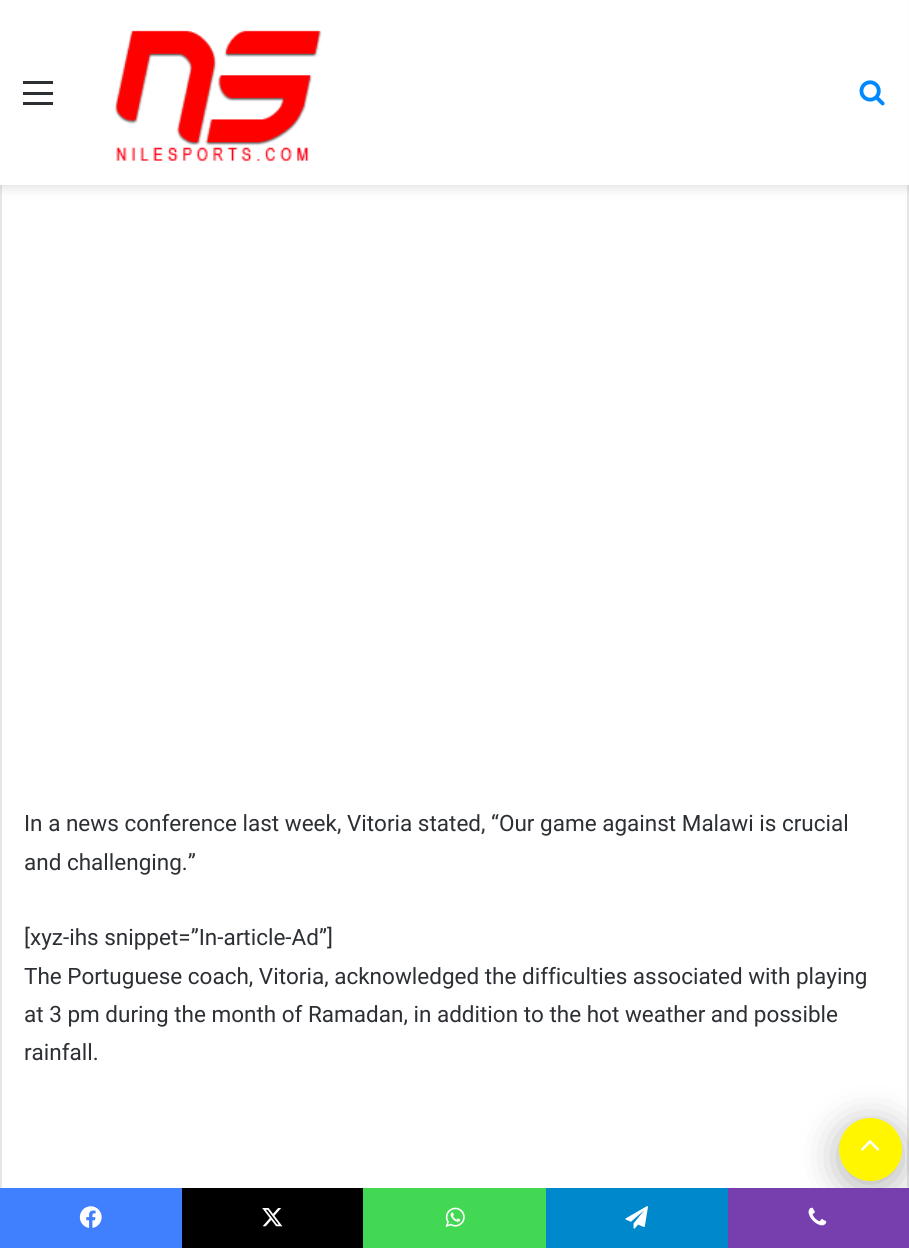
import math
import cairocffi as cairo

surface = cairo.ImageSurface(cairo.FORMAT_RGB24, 909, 1248)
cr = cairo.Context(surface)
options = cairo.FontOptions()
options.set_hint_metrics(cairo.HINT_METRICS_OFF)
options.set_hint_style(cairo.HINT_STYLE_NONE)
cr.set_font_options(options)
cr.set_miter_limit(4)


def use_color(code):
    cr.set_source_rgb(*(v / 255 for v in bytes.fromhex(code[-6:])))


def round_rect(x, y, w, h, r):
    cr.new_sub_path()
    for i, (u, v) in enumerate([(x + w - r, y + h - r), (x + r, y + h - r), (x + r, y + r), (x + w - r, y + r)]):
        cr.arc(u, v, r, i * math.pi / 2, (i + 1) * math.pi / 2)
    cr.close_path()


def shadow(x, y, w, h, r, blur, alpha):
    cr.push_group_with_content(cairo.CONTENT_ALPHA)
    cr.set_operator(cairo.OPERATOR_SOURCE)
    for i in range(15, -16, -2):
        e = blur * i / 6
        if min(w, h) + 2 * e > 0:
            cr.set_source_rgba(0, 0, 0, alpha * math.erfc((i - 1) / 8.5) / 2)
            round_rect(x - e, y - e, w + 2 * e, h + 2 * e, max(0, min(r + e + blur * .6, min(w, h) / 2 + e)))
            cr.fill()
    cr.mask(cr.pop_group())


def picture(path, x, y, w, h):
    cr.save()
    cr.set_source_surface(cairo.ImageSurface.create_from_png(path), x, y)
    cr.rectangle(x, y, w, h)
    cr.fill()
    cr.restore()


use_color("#ffffff")
cr.paint()
cr.rectangle(1, -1, 907, 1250)
use_color("#e6e6e6")
cr.stroke()
cr.save()
cr.set_fill_rule(cairo.FILL_RULE_EVEN_ODD)
cr.new_path()
cr.move_to(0, 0)
cr.line_to(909, 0)
cr.line_to(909, 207)
cr.line_to(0, 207)
cr.close_path()
cr.move_to(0, 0)
cr.line_to(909, 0)
cr.line_to(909, 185)
cr.line_to(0, 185)
cr.close_path()
cr.clip()
use_color("#636363")
shadow(0, 3, 909, 185, 0, 6, 0.2)
cr.restore()
cr.set_source_rgba(1, 1, 1, 0.95)
cr.rectangle(0, 0, 909, 185)
cr.fill()
use_color("#2c2f34")
cr.rectangle(23, 92, 30, 3)
cr.fill()
cr.rectangle(23, 81, 30, 3)
cr.fill()
cr.rectangle(23, 102, 30, 3)
cr.fill()
picture("img1.png", 114, 30, 208, 131)
picture("img2.png", 859, 80, 26, 26)
cr.select_font_face("Roboto")
cr.set_font_size(22.5)
cr.move_to(24, 831)
cr.show_text("In a news conference last week, Vitoria stated, “Our game against Malawi is crucial")
cr.move_to(24, 870)
cr.show_text("and challenging.”")
cr.move_to(24, 945)
cr.show_text("[xyz-ihs snippet=”In-article-Ad”]")
cr.move_to(24, 984)
cr.show_text("The Portuguese coach, Vitoria, acknowledged the difficulties associated with playing")
cr.move_to(24, 1022)
cr.show_text("at 3 pm during the month of Ramadan, in addition to the hot weather and possible")
cr.move_to(24, 1060)
cr.show_text("rainfall.")
use_color("#000000")
shadow(839, 1125, 63, 63, 31.5, 19, 0.3)
use_color("#fff600")
cr.arc(870.5, 1149.5, 31.5, 0, 2 * math.pi)
cr.fill()
picture("img3.png", 860, 1140, 20, 11)
use_color("#4080ff")
cr.rectangle(0, 1188, 182, 60)
cr.fill()
picture("img4.png", 79, 1206, 23, 22)
use_color("#000000")
cr.rectangle(182, 1188, 181, 60)
cr.fill()
picture("img5.png", 262, 1208, 21, 19)
use_color("#43d854")
cr.rectangle(363, 1188, 183, 60)
cr.fill()
picture("img6.png", 445, 1207, 20, 20)
use_color("#0088cc")
cr.rectangle(546, 1188, 182, 60)
cr.fill()
picture("img7.png", 625, 1206, 23, 23)
use_color("#773ead")
cr.rectangle(728, 1188, 181, 60)
cr.fill()
picture("img8.png", 808, 1207, 19, 19)
surface.write_to_png("result.png")
